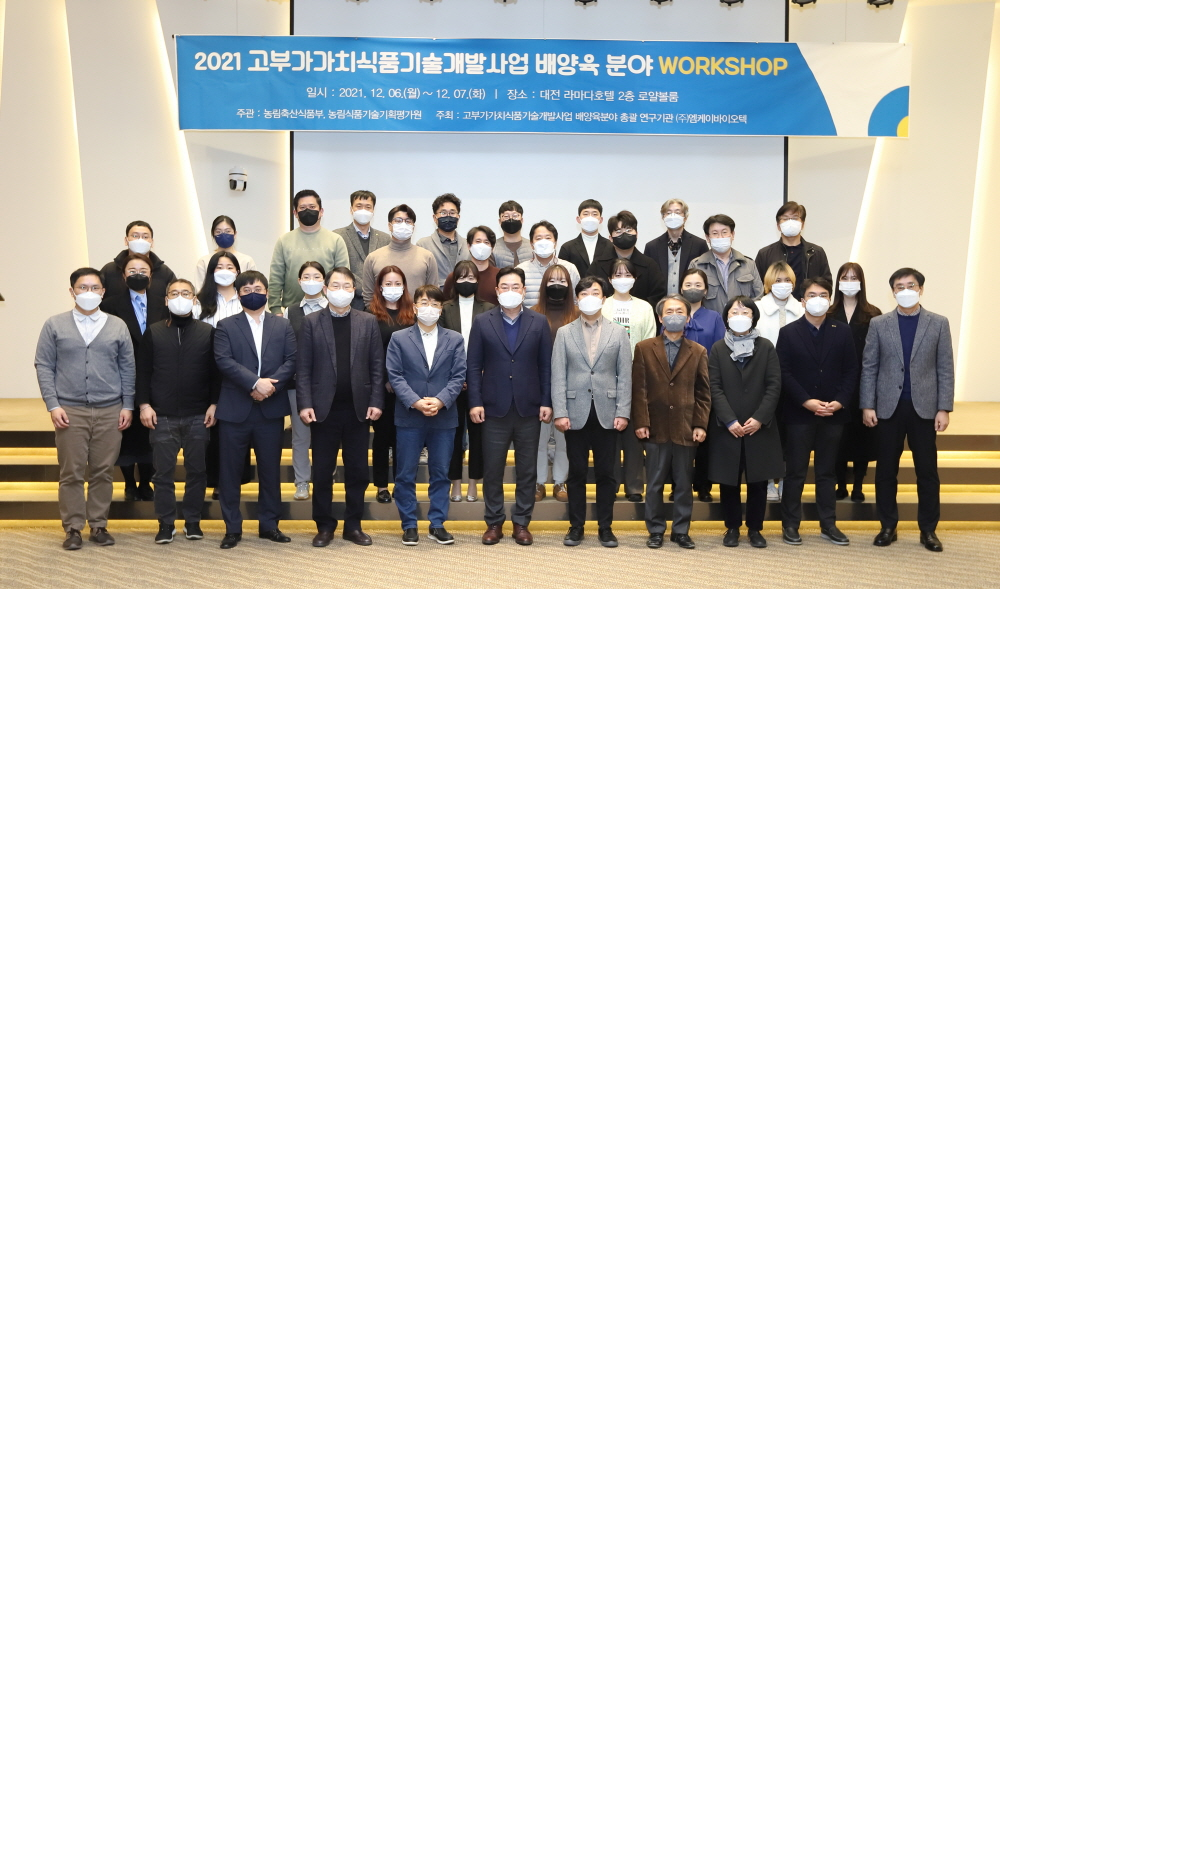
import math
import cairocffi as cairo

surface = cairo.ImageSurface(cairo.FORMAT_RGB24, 1195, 1857)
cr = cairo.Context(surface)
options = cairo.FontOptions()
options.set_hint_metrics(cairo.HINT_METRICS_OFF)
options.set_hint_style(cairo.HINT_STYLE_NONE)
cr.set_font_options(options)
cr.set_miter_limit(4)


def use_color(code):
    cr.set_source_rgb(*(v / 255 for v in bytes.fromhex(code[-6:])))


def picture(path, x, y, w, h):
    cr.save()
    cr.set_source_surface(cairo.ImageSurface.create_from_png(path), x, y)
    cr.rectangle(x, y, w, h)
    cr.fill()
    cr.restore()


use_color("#ffffff")
cr.paint()
picture("img1.png", 0, 0, 1000, 589)
surface.write_to_png("result.png")
